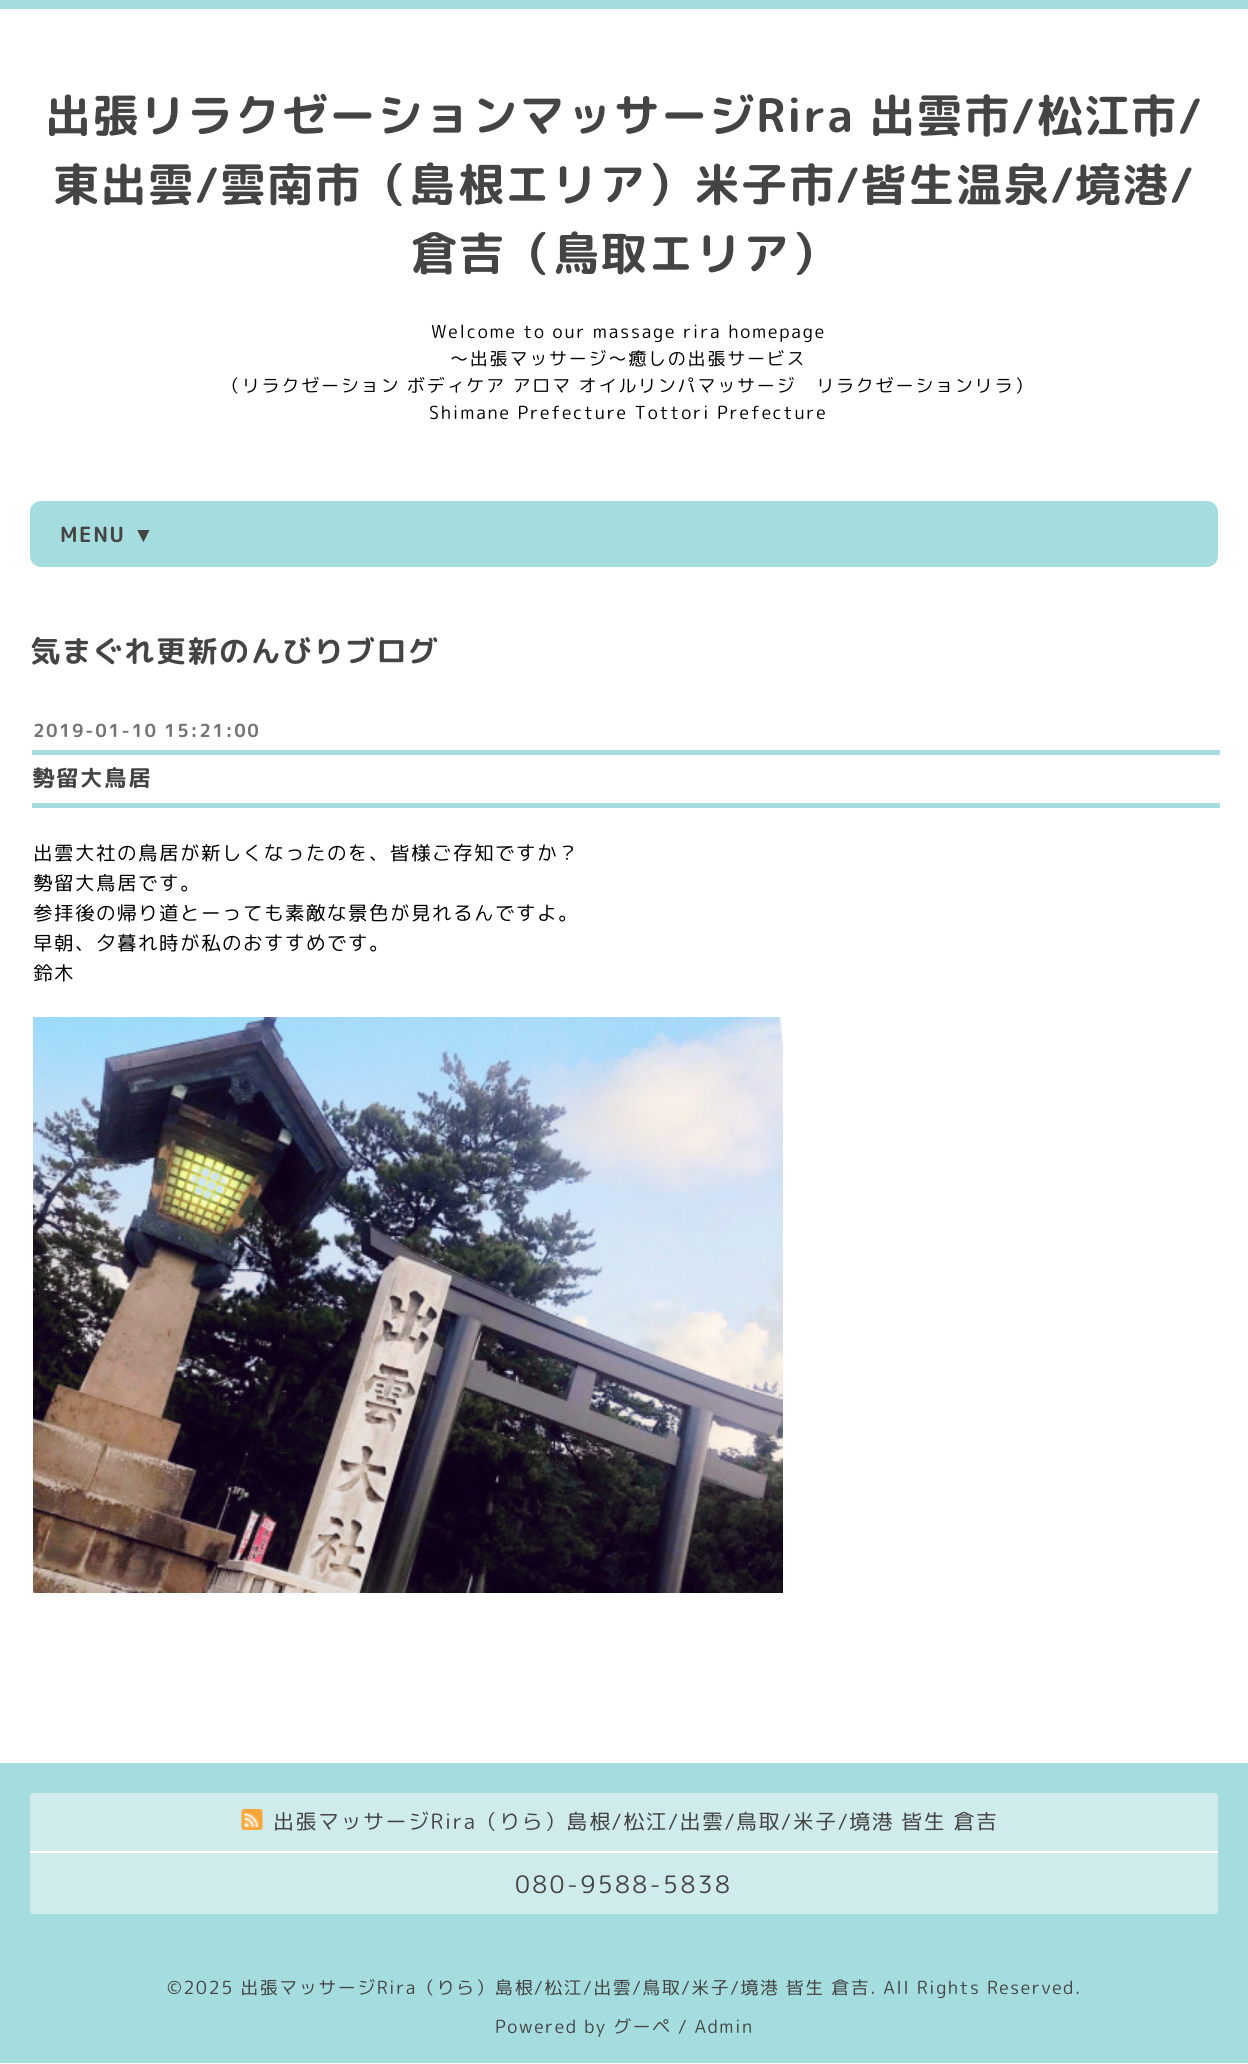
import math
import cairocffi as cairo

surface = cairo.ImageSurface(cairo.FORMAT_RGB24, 1248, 2064)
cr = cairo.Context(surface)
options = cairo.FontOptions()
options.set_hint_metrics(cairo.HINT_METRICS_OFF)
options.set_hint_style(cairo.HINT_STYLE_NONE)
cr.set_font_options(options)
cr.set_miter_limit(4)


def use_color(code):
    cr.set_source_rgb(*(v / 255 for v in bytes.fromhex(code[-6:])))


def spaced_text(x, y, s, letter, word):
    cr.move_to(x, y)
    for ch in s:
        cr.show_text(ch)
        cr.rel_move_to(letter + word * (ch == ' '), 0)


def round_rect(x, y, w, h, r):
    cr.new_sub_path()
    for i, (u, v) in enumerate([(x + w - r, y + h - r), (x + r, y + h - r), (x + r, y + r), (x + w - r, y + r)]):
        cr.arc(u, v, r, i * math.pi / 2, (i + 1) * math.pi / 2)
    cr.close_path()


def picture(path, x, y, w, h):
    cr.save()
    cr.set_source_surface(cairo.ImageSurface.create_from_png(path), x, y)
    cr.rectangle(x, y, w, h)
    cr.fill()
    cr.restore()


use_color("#ffffff")
cr.paint()
use_color("#a5ddde")
cr.rectangle(0, 0, 1248, 9)
cr.fill()
cr.select_font_face("Rounded Mplus 1c Bold", cairo.FONT_SLANT_NORMAL, cairo.FONT_WEIGHT_BOLD)
cr.set_font_size(45.9)
use_color("#444444")
spaced_text(45, 132, "出張リラクゼーションマッサージRira 出雲市/松江市/", 1.5, 0)
spaced_text(53, 201, "東出雲/雲南市（島根エリア）米子市/皆生温泉/境港/", 1.5, 0)
spaced_text(411, 270, "倉吉（鳥取エリア）", 1.5, 0)
cr.select_font_face("Rounded Mplus 1c")
cr.set_font_size(18)
use_color("#000000")
spaced_text(431, 338, "Welcome to our massage rira homepage", 1.8, 0)
spaced_text(450, 365, "〜出張マッサージ〜癒しの出張サービス", 1.8, 0)
spaced_text(222, 392, "（リラクゼーション ボディケア アロマ オイルリンパマッサージ　リラクゼーションリラ）", 1.8, 0)
spaced_text(429, 419, "Shimane Prefecture Tottori Prefecture", 1.8, 0)
use_color("#a5ddde")
round_rect(30, 501, 1188, 66, 11)
cr.fill()
cr.select_font_face("Rounded Mplus 1c Bold", cairo.FONT_SLANT_NORMAL, cairo.FONT_WEIGHT_BOLD)
cr.set_font_size(21)
use_color("#444444")
spaced_text(60, 542, "MENU", 1.5, 0)
cr.select_font_face("Liberation Serif", cairo.FONT_SLANT_NORMAL, cairo.FONT_WEIGHT_BOLD)
spaced_text(133, 542, "▼", 1.5, 0)
cr.select_font_face("Rounded Mplus 1c Bold", cairo.FONT_SLANT_NORMAL, cairo.FONT_WEIGHT_BOLD)
cr.set_font_size(30)
spaced_text(30, 662, "気まぐれ更新のんびりブログ", 1.5, 0)
cr.set_font_size(18)
use_color("#747474")
spaced_text(33, 737, "2019-01-10 15:21:00", 1.5, 0)
use_color("#a5ddde")
cr.rectangle(32, 750, 1188, 5)
cr.fill()
cr.set_font_size(22.5)
use_color("#444444")
spaced_text(32, 786, "勢留大鳥居", 1.5, 0)
use_color("#a5ddde")
cr.rectangle(32, 803, 1188, 5)
cr.fill()
cr.select_font_face("Rounded Mplus 1c")
cr.set_font_size(19.5)
use_color("#000000")
spaced_text(33, 860, "出雲大社の鳥居が新しくなったのを、皆様ご存知ですか？", 1.5, 0)
spaced_text(33, 890, "勢留大鳥居です。", 1.5, 0)
spaced_text(33, 920, "参拝後の帰り道とーっても素敵な景色が見れるんですよ。", 1.5, 0)
spaced_text(33, 950, "早朝、夕暮れ時が私のおすすめです。", 1.5, 0)
spaced_text(33, 980, "鈴木", 1.5, 0)
picture("img1.png", 33, 1017, 750, 576)
use_color("#a5ddde")
cr.rectangle(0, 1763, 1248, 300)
cr.fill()
use_color("#cfebec")
round_rect(30, 1793, 1188, 121, 3)
cr.fill()
picture("img2.png", 241, 1809, 22, 21)
cr.set_font_size(21)
use_color("#444444")
spaced_text(273, 1829, "出張マッサージRira（りら）島根/松江/出雲/鳥取/米子/境港 皆生 倉吉", 1.5, 0)
use_color("#ffffff")
cr.rectangle(30, 1851, 1188, 2)
cr.fill()
cr.set_font_size(24)
use_color("#444444")
spaced_text(515, 1893, "080-9588-5838", 2.4, 0)
cr.set_font_size(18)
spaced_text(167, 1994, "©2025 出張マッサージRira（りら）島根/松江/出雲/鳥取/米子/境港 皆生 倉吉. All Rights Reserved.", 1.5, 0)
spaced_text(495, 2033, "Powered by グーペ / Admin", 1.5, 0)
surface.write_to_png("result.png")
